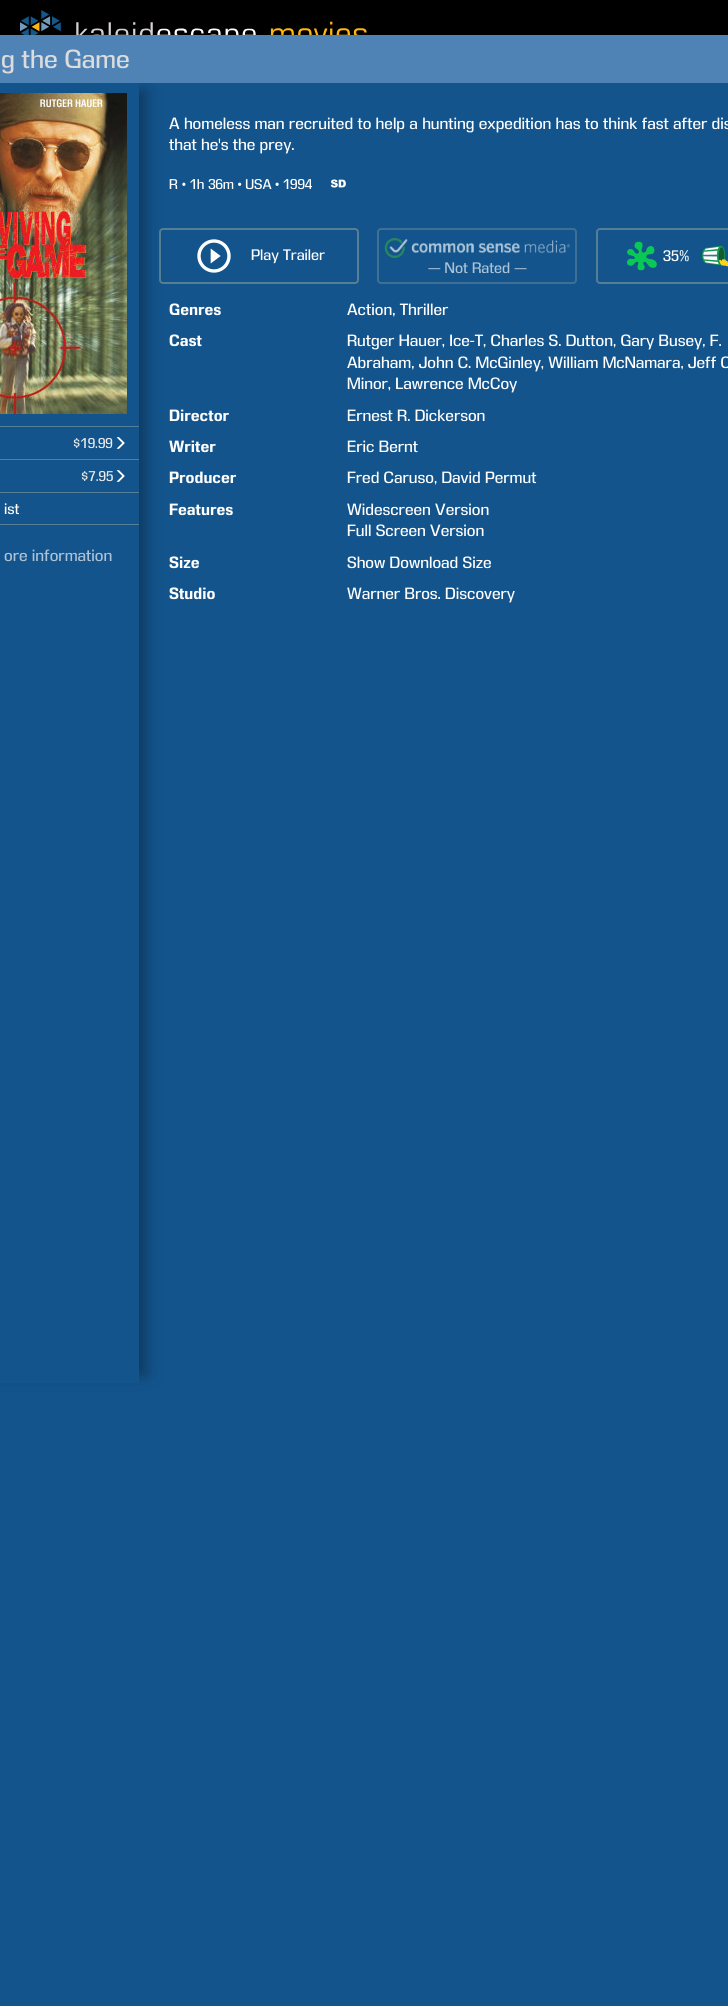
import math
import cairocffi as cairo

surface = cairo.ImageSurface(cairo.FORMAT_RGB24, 728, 2006)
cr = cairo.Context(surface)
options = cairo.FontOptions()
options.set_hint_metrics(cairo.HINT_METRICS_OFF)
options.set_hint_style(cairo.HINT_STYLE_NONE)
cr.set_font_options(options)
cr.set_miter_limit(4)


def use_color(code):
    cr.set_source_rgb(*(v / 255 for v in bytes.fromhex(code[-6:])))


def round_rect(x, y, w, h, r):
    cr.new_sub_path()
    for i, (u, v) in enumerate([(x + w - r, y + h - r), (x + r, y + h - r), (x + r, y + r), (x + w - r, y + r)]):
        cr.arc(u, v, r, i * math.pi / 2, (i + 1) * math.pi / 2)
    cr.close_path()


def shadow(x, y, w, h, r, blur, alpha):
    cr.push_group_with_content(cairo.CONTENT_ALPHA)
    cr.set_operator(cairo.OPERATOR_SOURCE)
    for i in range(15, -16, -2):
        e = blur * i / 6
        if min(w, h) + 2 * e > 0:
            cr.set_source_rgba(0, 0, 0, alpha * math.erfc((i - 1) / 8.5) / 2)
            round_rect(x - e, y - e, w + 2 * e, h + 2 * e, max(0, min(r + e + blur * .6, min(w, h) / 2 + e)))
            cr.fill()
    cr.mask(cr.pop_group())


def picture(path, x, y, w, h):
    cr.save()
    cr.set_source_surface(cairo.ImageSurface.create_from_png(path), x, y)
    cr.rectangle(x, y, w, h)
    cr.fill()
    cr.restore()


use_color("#000000")
cr.paint()
picture("img1.png", 20, 10, 347, 25)
use_color("#13548c")
cr.rectangle(0, 83, 728, 1923)
cr.fill()
round_rect(160, 229, 198, 54, 3)
use_color("#567e95")
cr.stroke()
cr.save()
cr.set_fill_rule(cairo.FILL_RULE_EVEN_ODD)
cr.new_path()
cr.move_to(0, 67)
cr.line_to(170, 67)
cr.line_to(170, 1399)
cr.line_to(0, 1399)
cr.close_path()
cr.move_to(-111, 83)
cr.line_to(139, 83)
cr.line_to(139, 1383)
cr.line_to(-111, 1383)
cr.close_path()
cr.clip()
use_color("#0d395f")
shadow(-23, 91, 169, 1284, 0, 7.5, 1)
cr.restore()
use_color("#4f83b6")
cr.rectangle(0, 35, 728, 48)
cr.fill()
cr.select_font_face("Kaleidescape")
cr.set_font_size(24)
use_color("#dcdcdc")
cr.move_to(1, 68)
cr.show_text("g the Game")
picture("img2.png", 0, 93, 127, 321)
use_color("#567e95")
cr.rectangle(0, 426, 139, 1)
cr.fill()
cr.set_font_size(13)
use_color("#ebebeb")
cr.move_to(73, 448)
cr.show_text("$19.99")
picture("img3.png", 116, 437, 9, 12)
use_color("#567e95")
cr.rectangle(0, 459, 139, 1)
cr.fill()
use_color("#ebebeb")
cr.move_to(81, 481)
cr.show_text("$7.95")
picture("img3.png", 116, 470, 9, 12)
use_color("#567e95")
cr.rectangle(0, 492, 139, 1)
cr.fill()
cr.rectangle(0, 524, 139, 1)
cr.fill()
cr.set_font_size(14)
use_color("#ffffff")
cr.move_to(4, 514)
cr.show_text("ist")
cr.set_font_size(15)
use_color("#acc3d7")
cr.move_to(4, 561)
cr.show_text("ore information")
use_color("#ffffff")
cr.move_to(169, 129)
cr.show_text("A homeless man recruited to help a hunting expedition has to think fast after dis")
cr.move_to(169, 150)
cr.show_text("that he's the prey.")
cr.set_font_size(13)
cr.move_to(169, 189)
cr.show_text("R")
cr.move_to(182, 189)
cr.show_text("• 1h 36m • USA • 1994")
picture("img4.png", 330, 179, 16, 9)
picture("img5.png", 197, 239, 34, 34)
cr.set_font_size(14)
cr.move_to(251, 260)
cr.show_text("Play Trailer")
round_rect(597, 229, 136, 54, 3)
use_color("#567e95")
cr.stroke()
picture("img6.png", 627, 241, 30, 30)
use_color("#ffffff")
cr.move_to(663, 261)
cr.show_text("35%")
picture("img7.png", 702, 245, 26, 22)
round_rect(378, 229, 198, 54, 3)
use_color("#3f6f92")
cr.stroke()
picture("img8.png", 384, 238, 186, 20)
use_color("#acc3d7")
cr.move_to(428, 273)
cr.show_text("— Not Rated —")
cr.select_font_face("Kaleidescape", cairo.FONT_SLANT_NORMAL, cairo.FONT_WEIGHT_BOLD)
cr.set_font_size(15)
use_color("#ffffff")
cr.move_to(169, 315)
cr.show_text("Genres")
cr.select_font_face("Kaleidescape")
cr.move_to(347, 315)
cr.show_text("Action, Thriller")
cr.select_font_face("Kaleidescape", cairo.FONT_SLANT_NORMAL, cairo.FONT_WEIGHT_BOLD)
cr.move_to(169, 346)
cr.show_text("Cast")
cr.select_font_face("Kaleidescape")
cr.move_to(347, 346)
cr.show_text("Rutger Hauer, Ice-T, Charles S. Dutton, Gary Busey, F.")
cr.move_to(347, 368)
cr.show_text("Abraham, John C. McGinley, William McNamara, Jeff C")
cr.move_to(347, 389)
cr.show_text("Minor, Lawrence McCoy")
cr.select_font_face("Kaleidescape", cairo.FONT_SLANT_NORMAL, cairo.FONT_WEIGHT_BOLD)
cr.move_to(169, 421)
cr.show_text("Director")
cr.select_font_face("Kaleidescape")
cr.move_to(347, 421)
cr.show_text("Ernest R. Dickerson")
cr.select_font_face("Kaleidescape", cairo.FONT_SLANT_NORMAL, cairo.FONT_WEIGHT_BOLD)
cr.move_to(169, 452)
cr.show_text("Writer")
cr.select_font_face("Kaleidescape")
cr.move_to(347, 452)
cr.show_text("Eric Bernt")
cr.select_font_face("Kaleidescape", cairo.FONT_SLANT_NORMAL, cairo.FONT_WEIGHT_BOLD)
cr.move_to(169, 483)
cr.show_text("Producer")
cr.select_font_face("Kaleidescape")
cr.move_to(347, 483)
cr.show_text("Fred Caruso, David Permut")
cr.select_font_face("Kaleidescape", cairo.FONT_SLANT_NORMAL, cairo.FONT_WEIGHT_BOLD)
cr.move_to(169, 515)
cr.show_text("Features")
cr.select_font_face("Kaleidescape")
cr.move_to(347, 515)
cr.show_text("Widescreen Version")
cr.move_to(347, 536)
cr.show_text("Full Screen Version")
cr.select_font_face("Kaleidescape", cairo.FONT_SLANT_NORMAL, cairo.FONT_WEIGHT_BOLD)
cr.move_to(169, 568)
cr.show_text("Size")
cr.select_font_face("Kaleidescape")
cr.move_to(347, 568)
cr.show_text("Show Download Size")
cr.select_font_face("Kaleidescape", cairo.FONT_SLANT_NORMAL, cairo.FONT_WEIGHT_BOLD)
cr.move_to(169, 599)
cr.show_text("Studio")
cr.select_font_face("Kaleidescape")
cr.move_to(347, 599)
cr.show_text("Warner Bros. Discovery")
surface.write_to_png("result.png")
